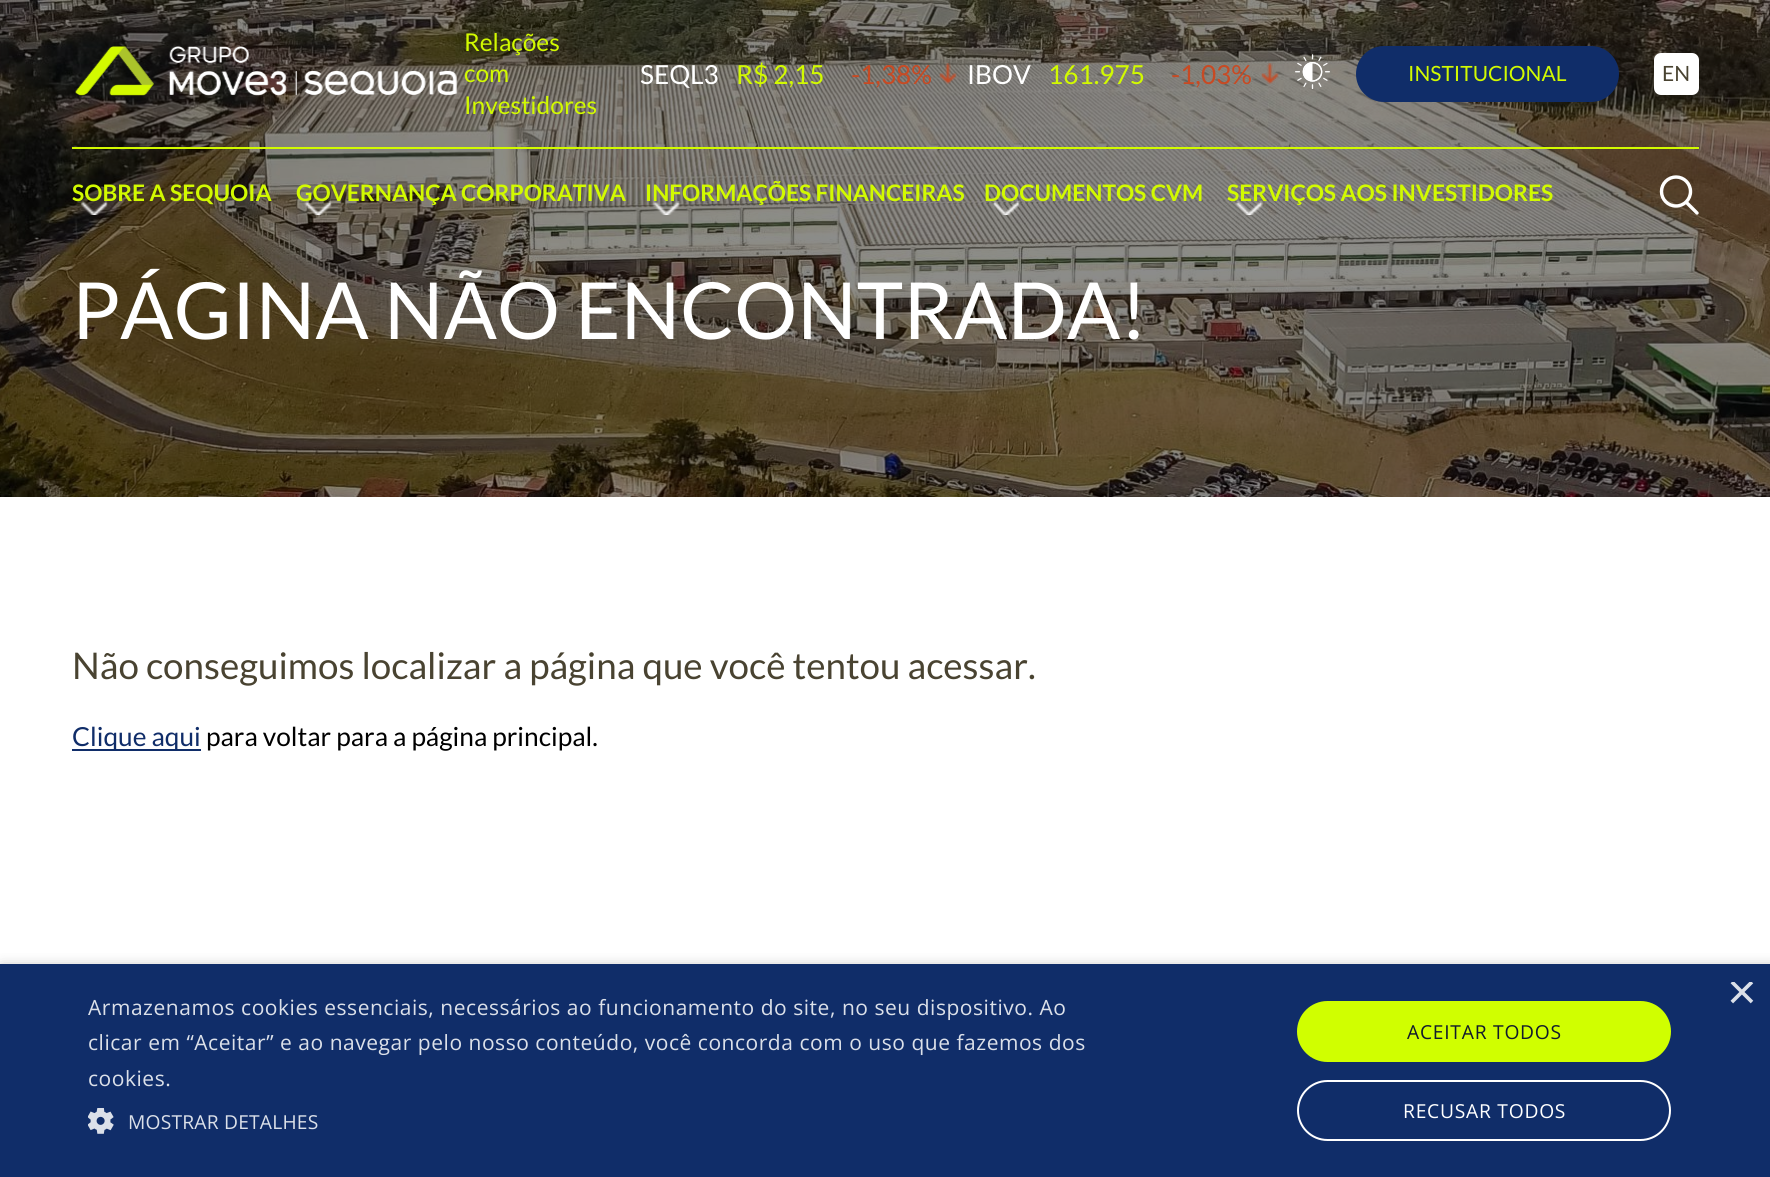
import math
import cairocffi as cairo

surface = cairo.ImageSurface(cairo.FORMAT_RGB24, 1770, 1177)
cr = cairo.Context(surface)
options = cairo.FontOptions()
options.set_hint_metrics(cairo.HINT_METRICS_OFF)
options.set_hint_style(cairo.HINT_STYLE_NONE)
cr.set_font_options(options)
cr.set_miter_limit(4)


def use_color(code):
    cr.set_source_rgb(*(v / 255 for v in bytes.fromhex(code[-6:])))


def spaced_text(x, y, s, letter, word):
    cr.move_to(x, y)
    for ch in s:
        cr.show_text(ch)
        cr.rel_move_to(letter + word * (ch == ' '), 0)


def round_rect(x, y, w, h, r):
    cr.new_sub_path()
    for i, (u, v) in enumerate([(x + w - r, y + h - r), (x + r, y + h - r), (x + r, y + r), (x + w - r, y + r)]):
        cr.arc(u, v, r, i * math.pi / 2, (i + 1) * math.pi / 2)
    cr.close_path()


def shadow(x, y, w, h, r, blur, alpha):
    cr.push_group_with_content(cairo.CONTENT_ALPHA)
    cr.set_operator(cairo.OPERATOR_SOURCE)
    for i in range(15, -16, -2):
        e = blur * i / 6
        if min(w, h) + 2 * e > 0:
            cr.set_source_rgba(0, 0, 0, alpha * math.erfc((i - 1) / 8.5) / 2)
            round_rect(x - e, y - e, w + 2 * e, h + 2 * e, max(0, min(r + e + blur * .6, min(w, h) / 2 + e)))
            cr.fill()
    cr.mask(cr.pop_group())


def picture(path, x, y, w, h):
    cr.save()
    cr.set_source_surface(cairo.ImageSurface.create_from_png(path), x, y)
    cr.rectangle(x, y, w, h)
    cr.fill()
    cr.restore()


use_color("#ffffff")
cr.paint()
picture("img10.png", 0, 0, 1770, 497)
use_color("#d2fa00")
cr.rectangle(72, 147, 1627, 2)
cr.fill()
picture("img1.png", 75, 46, 383, 50)
cr.select_font_face("Lato")
cr.set_font_size(24.5)
cr.move_to(464, 51)
cr.show_text("Relações")
cr.move_to(464, 82)
cr.show_text("com")
cr.move_to(464, 114)
cr.show_text("Investidores")
cr.set_font_size(26.25)
use_color("#ffffff")
cr.move_to(640, 84)
cr.show_text("SEQL3")
use_color("#d2fa00")
cr.move_to(736, 84)
cr.show_text("R$ 2,15")
use_color("#c84a23")
cr.move_to(851, 84)
cr.show_text("-1,38%")
picture("img2.png", 939, 63, 18, 21)
use_color("#ffffff")
cr.move_to(967, 84)
cr.show_text("IBOV")
use_color("#d2fa00")
cr.move_to(1048, 84)
cr.show_text("161.975")
use_color("#c84a23")
cr.move_to(1171, 84)
cr.show_text("-1,03%")
picture("img3.png", 1261, 63, 18, 21)
picture("img4.png", 1295, 54, 35, 35)
use_color("#102d69")
round_rect(1356, 46, 263, 56, 28)
cr.fill()
cr.set_font_size(21)
use_color("#d2fa00")
cr.move_to(1408, 81)
cr.show_text("INSTITUCIONAL")
use_color("#ffffff")
round_rect(1654, 53, 45, 42, 7)
cr.fill()
use_color("#494331")
cr.move_to(1662, 81)
cr.show_text("EN")
cr.select_font_face("Lato", cairo.FONT_SLANT_NORMAL, cairo.FONT_WEIGHT_BOLD)
cr.set_font_size(22.75)
use_color("#d2fa00")
cr.move_to(72, 201)
cr.show_text("SOBRE A SEQUOIA")
picture("img5.png", 81, 201, 27, 14)
cr.move_to(296, 201)
cr.show_text("GOVERNANÇA CORPORATIVA")
picture("img6.png", 304, 201, 28, 14)
cr.move_to(645, 201)
cr.show_text("INFORMAÇÕES FINANCEIRAS")
picture("img7.png", 652, 201, 28, 14)
cr.move_to(984, 201)
cr.show_text("DOCUMENTOS CVM")
picture("img8.png", 992, 201, 27, 14)
cr.move_to(1227, 201)
cr.show_text("SERVIÇOS AOS INVESTIDORES")
picture("img9.png", 1235, 201, 28, 14)
cr.arc(1676, 191.5, 14.5, 0, 2 * math.pi)
use_color("#ffffff")
cr.set_line_width(3.4)
cr.stroke()
cr.new_path()
cr.move_to(1687.5, 203.5)
cr.line_to(1697, 213)
cr.set_line_cap(cairo.LINE_CAP_ROUND)
cr.stroke()
cr.select_font_face("Lato")
cr.set_font_size(78.75)
cr.move_to(72, 339)
cr.show_text("PÁGINA NÃO ENCONTRADA!")
cr.set_font_size(36.75)
use_color("#494331")
cr.move_to(72, 679)
cr.show_text("Não conseguimos localizar a página que você tentou acessar.")
use_color("#102d69")
cr.rectangle(72, 749, 129, 2)
cr.fill()
cr.set_font_size(26.25)
cr.move_to(72, 746)
cr.show_text("Clique aqui")
use_color("#000000")
cr.move_to(206, 746)
cr.show_text("para voltar para a página principal.")
use_color("#000000")
shadow(2, 968, 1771, 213, 0, 7, 0.35)
use_color("#102d69")
cr.rectangle(0, 964, 1770, 213)
cr.fill()
cr.save()
cr.rectangle(1727, 982, 27, 26)
cr.clip()
cr.select_font_face("Liberation Sans")
cr.set_font_size(51)
use_color("#dbe0e9")
cr.move_to(1727, 1009)
cr.show_text("×")
cr.restore()
cr.select_font_face("Open Sans")
cr.set_font_size(21)
use_color("#dbe0e9")
spaced_text(88, 1015, "Armazenamos cookies essenciais, necessários ao funcionamento do site, no seu dispositivo. Ao", 0.53, 0)
spaced_text(88, 1050, "clicar em “Aceitar” e ao navegar pelo nosso conteúdo, você concorda com o uso que fazemos dos", 0.53, 0)
spaced_text(88, 1086, "cookies.", 0.53, 0)
picture("img11.png", 88, 1108, 26, 26)
cr.set_font_size(19.25)
spaced_text(128, 1129, "MOSTRAR DETALHES", 0.2, 0)
use_color("#d0ff00")
round_rect(1297, 1001, 374, 61, 30.5)
cr.fill()
use_color("#111a2d")
spaced_text(1407, 1039, "ACEITAR TODOS", 0.75, 0)
round_rect(1298, 1081, 372, 59, 29.5)
use_color("#ffffff")
cr.set_line_width(2)
cr.set_line_cap(cairo.LINE_CAP_BUTT)
cr.stroke()
spaced_text(1403, 1118, "RECUSAR TODOS", 0.75, 0)
surface.write_to_png("result.png")
